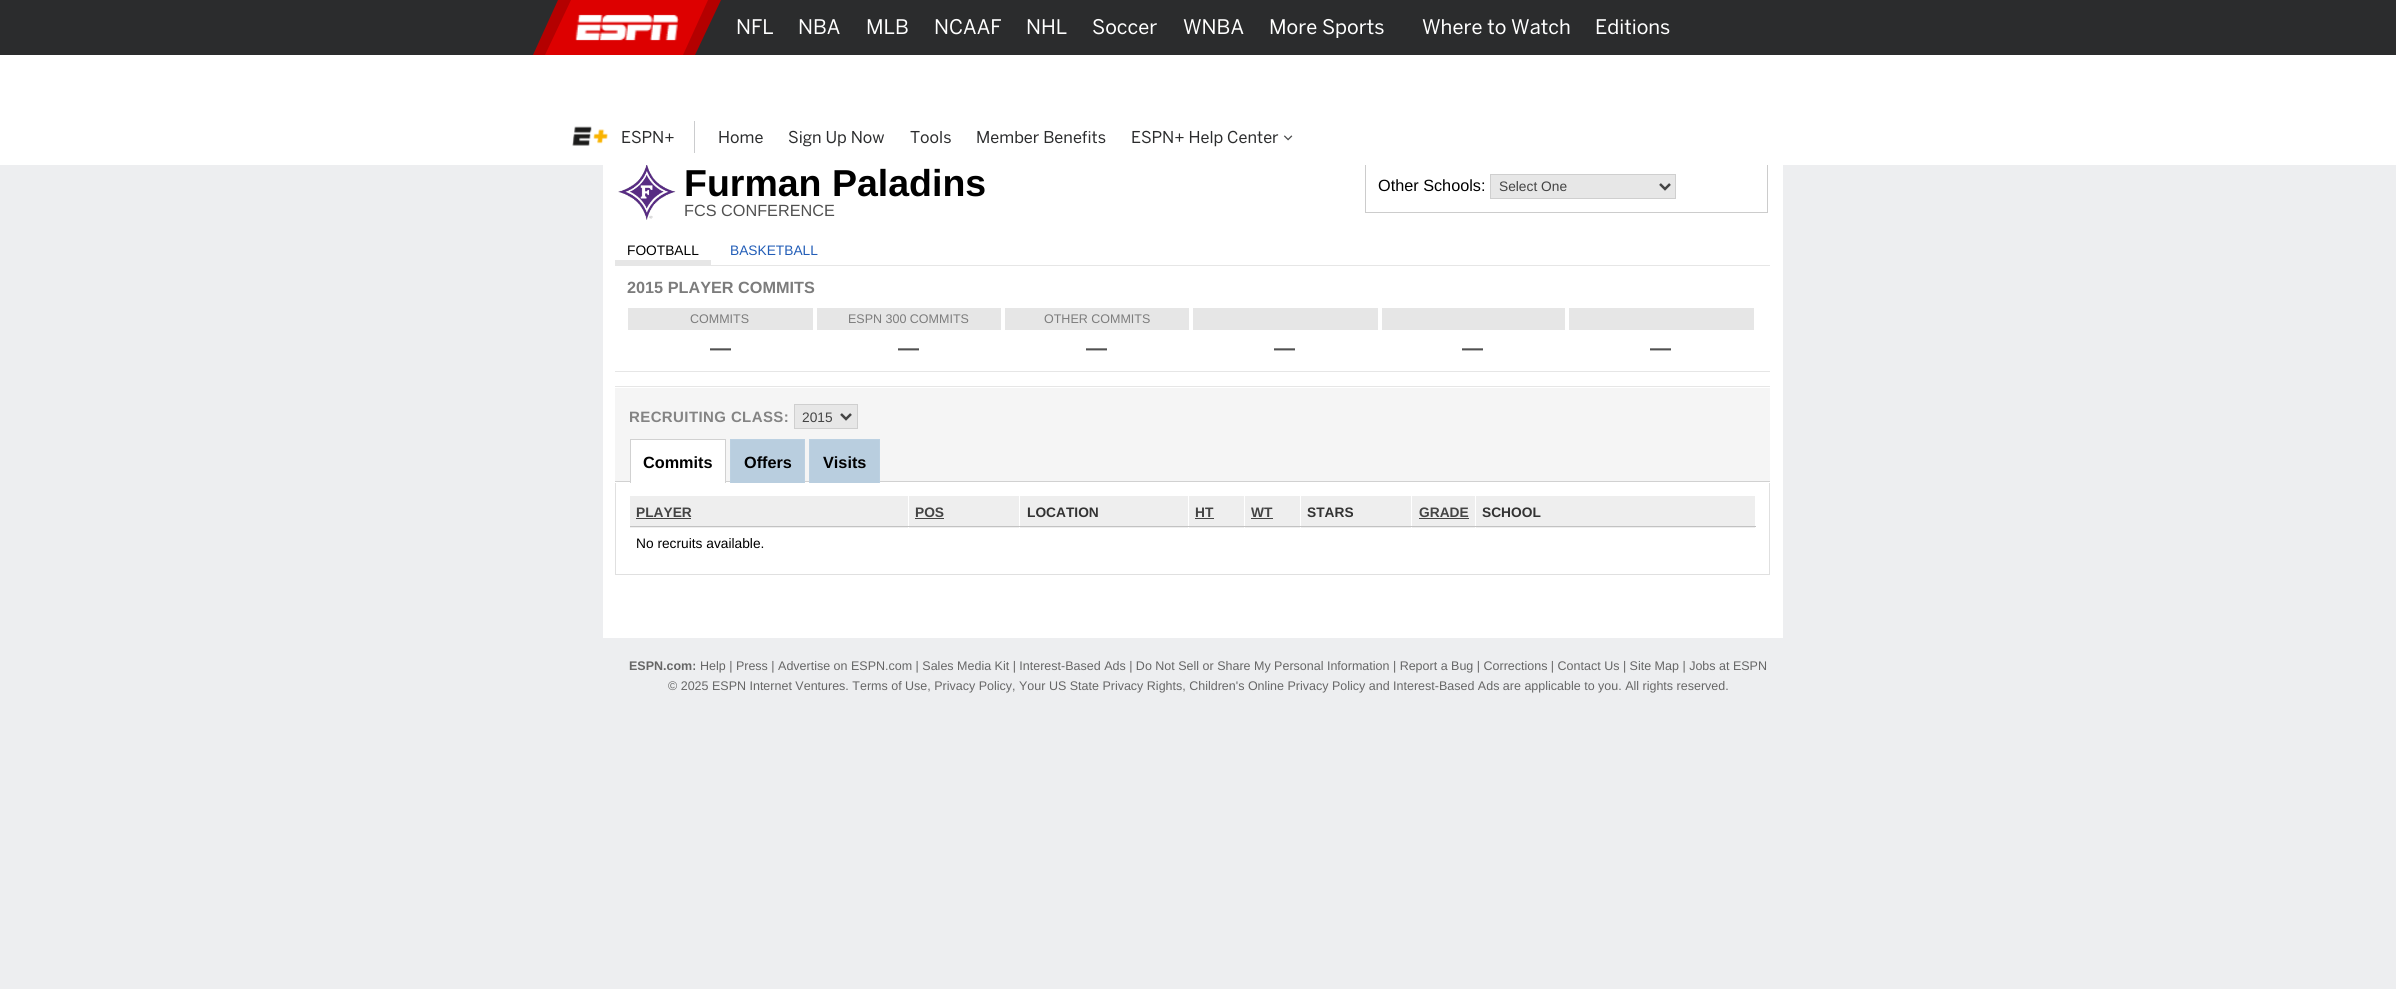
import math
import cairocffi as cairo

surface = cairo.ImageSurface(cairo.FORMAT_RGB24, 2396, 989)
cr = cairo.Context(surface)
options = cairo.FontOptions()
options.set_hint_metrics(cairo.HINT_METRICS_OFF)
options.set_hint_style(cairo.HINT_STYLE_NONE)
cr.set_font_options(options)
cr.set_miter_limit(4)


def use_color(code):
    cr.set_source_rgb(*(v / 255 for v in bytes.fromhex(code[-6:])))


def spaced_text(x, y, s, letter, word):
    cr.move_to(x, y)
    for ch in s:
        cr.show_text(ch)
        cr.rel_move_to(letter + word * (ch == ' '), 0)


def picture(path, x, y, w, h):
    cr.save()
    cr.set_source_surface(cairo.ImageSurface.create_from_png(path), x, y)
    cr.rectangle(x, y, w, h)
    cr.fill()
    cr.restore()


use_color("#edeef0")
cr.paint()
use_color("#ffffff")
cr.rectangle(603, 165, 1180, 473)
cr.fill()
cr.rectangle(1365.5, 160.5, 402, 52)
use_color("#cccccc")
cr.set_line_width(1)
cr.stroke()
use_color("#ffffff")
cr.rectangle(0, 55, 2396, 110)
cr.fill()
use_color("#2b2c2d")
cr.rectangle(0, 0, 2396, 55)
cr.fill()
use_color("#b40000")
cr.new_path()
cr.move_to(558, 0)
cr.line_to(721, 0)
cr.line_to(695, 55)
cr.line_to(533, 55)
cr.close_path()
cr.fill()
use_color("#dd0000")
cr.new_path()
cr.move_to(571, 0)
cr.line_to(708, 0)
cr.line_to(683, 55)
cr.line_to(545, 55)
cr.close_path()
cr.fill()
picture("img1.png", 575, 14, 104, 27)
cr.select_font_face("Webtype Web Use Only")
cr.set_font_size(20)
use_color("#ffffff")
cr.move_to(736, 34)
cr.show_text("NFL")
cr.move_to(798, 34)
cr.show_text("NBA")
cr.move_to(866, 34)
cr.show_text("MLB")
cr.move_to(934, 34)
cr.show_text("NCAAF")
cr.move_to(1026, 34)
cr.show_text("NHL")
cr.move_to(1092, 34)
cr.show_text("Soccer")
cr.move_to(1183, 34)
cr.show_text("WNBA")
cr.move_to(1269, 34)
cr.show_text("More Sports")
cr.move_to(1422, 34)
cr.show_text("Where to Watch")
cr.move_to(1595, 34)
cr.show_text("Editions")
picture("img2.png", 572, 126, 36, 20)
cr.set_font_size(16.25)
use_color("#2b2c2d")
cr.move_to(621, 143)
cr.show_text("ESPN+")
use_color("#cbccce")
cr.rectangle(694, 121, 1, 32)
cr.fill()
use_color("#2b2c2d")
cr.move_to(718, 143)
cr.show_text("Home")
cr.move_to(788, 143)
cr.show_text("Sign Up Now")
cr.move_to(910, 143)
cr.show_text("Tools")
cr.move_to(976, 143)
cr.show_text("Member Benefits")
cr.move_to(1131, 143)
cr.show_text("ESPN+ Help Center")
picture("img3.png", 1283, 135, 10, 6)
picture("img4.png", 618, 165, 58, 55)
cr.select_font_face("Liberation Sans", cairo.FONT_SLANT_NORMAL, cairo.FONT_WEIGHT_BOLD)
cr.set_font_size(37.5)
use_color("#000000")
cr.move_to(684, 196)
cr.show_text("Furman Paladins")
cr.select_font_face("Liberation Sans")
cr.set_font_size(16.25)
use_color("#505050")
cr.move_to(684, 216)
cr.show_text("FCS CONFERENCE")
use_color("#000000")
cr.move_to(1378, 191)
cr.show_text("Other Schools:")
use_color("#e7e7e7")
cr.rectangle(1490.5, 174.5, 185, 24)
cr.fill_preserve()
use_color("#cfcfcf")
cr.stroke()
cr.new_path()
cr.move_to(1660, 184)
cr.line_to(1665, 189)
cr.line_to(1670, 184)
use_color("#444444")
cr.set_line_width(2.5)
cr.stroke()
cr.set_font_size(13.75)
cr.move_to(1499, 191)
cr.show_text("Select One")
use_color("#e6e6e6")
cr.rectangle(615, 260, 96, 5)
cr.fill()
use_color("#000000")
cr.move_to(627, 255)
cr.show_text("FOOTBALL")
use_color("#225db7")
cr.move_to(730, 255)
cr.show_text("BASKETBALL")
use_color("#e6e6e6")
cr.rectangle(615, 265, 1155, 1)
cr.fill()
cr.rectangle(615, 371, 1155, 1)
cr.fill()
cr.select_font_face("Liberation Sans", cairo.FONT_SLANT_NORMAL, cairo.FONT_WEIGHT_BOLD)
cr.set_font_size(16.25)
use_color("#7c7c7c")
cr.move_to(627, 293)
cr.show_text("2015 PLAYER COMMITS")
use_color("#e6e6e6")
cr.rectangle(628, 308, 185, 22)
cr.fill()
cr.select_font_face("Liberation Sans")
cr.set_font_size(12.5)
use_color("#7c7c7c")
cr.move_to(690, 323)
cr.show_text("COMMITS")
use_color("#e6e6e6")
cr.rectangle(817, 308, 184, 22)
cr.fill()
use_color("#7c7c7c")
cr.move_to(848, 323)
cr.show_text("ESPN 300 COMMITS")
use_color("#e6e6e6")
cr.rectangle(1005, 308, 184, 22)
cr.fill()
use_color("#7c7c7c")
cr.move_to(1044, 323)
cr.show_text("OTHER COMMITS")
use_color("#e6e6e6")
cr.rectangle(1193, 308, 185, 22)
cr.fill()
cr.rectangle(1382, 308, 183, 22)
cr.fill()
cr.rectangle(1569, 308, 185, 22)
cr.fill()
cr.select_font_face("Liberation Sans", cairo.FONT_SLANT_NORMAL, cairo.FONT_WEIGHT_BOLD)
cr.set_font_size(21)
use_color("#505050")
cr.move_to(710, 355)
cr.show_text("—")
cr.move_to(898, 355)
cr.show_text("—")
cr.move_to(1086, 355)
cr.show_text("—")
cr.move_to(1274, 355)
cr.show_text("—")
cr.move_to(1462, 355)
cr.show_text("—")
cr.move_to(1650, 355)
cr.show_text("—")
use_color("#f5f5f5")
cr.rectangle(615, 388, 1155, 93)
cr.fill()
use_color("#e6e6e6")
cr.rectangle(615, 386, 1155, 1)
cr.fill()
use_color("#d1d1d1")
cr.rectangle(615, 481, 1155, 1)
cr.fill()
cr.set_font_size(15)
use_color("#848484")
spaced_text(629, 422, "RECRUITING CLASS:", 0.4, 0)
use_color("#e7e7e7")
cr.rectangle(794.5, 404.5, 63, 24)
cr.fill_preserve()
use_color("#cfcfcf")
cr.set_line_width(1)
cr.stroke()
cr.new_path()
cr.move_to(841, 414)
cr.line_to(846, 419)
cr.line_to(851, 414)
use_color("#444444")
cr.set_line_width(2.5)
cr.stroke()
cr.select_font_face("Liberation Sans")
cr.set_font_size(13.75)
cr.move_to(802, 422)
cr.show_text("2015")
use_color("#ffffff")
cr.rectangle(631, 440, 94, 42)
cr.fill()
cr.save()
cr.rectangle(615, 439, 1168, 44)
cr.clip()
cr.rectangle(630.5, 439.5, 95, 44)
use_color("#d1d1d1")
cr.set_line_width(1)
cr.stroke()
cr.restore()
cr.select_font_face("Liberation Sans", cairo.FONT_SLANT_NORMAL, cairo.FONT_WEIGHT_BOLD)
cr.set_font_size(16.25)
use_color("#000000")
cr.move_to(643, 468)
cr.show_text("Commits")
use_color("#b9cedf")
cr.rectangle(731, 440, 73, 43)
cr.fill()
use_color("#bcd1e2")
cr.rectangle(730, 439, 75, 1)
cr.fill()
cr.rectangle(804, 439, 1, 44)
cr.fill()
cr.rectangle(730, 439, 1, 44)
cr.fill()
use_color("#000000")
cr.move_to(744, 468)
cr.show_text("Offers")
use_color("#b9cedf")
cr.rectangle(810, 440, 69, 43)
cr.fill()
use_color("#bcd1e2")
cr.rectangle(809, 439, 71, 1)
cr.fill()
cr.rectangle(879, 439, 1, 44)
cr.fill()
cr.rectangle(809, 439, 1, 44)
cr.fill()
use_color("#000000")
cr.move_to(823, 468)
cr.show_text("Visits")
use_color("#e0e0e0")
cr.rectangle(1769, 483, 1, 92)
cr.fill()
cr.rectangle(615, 574, 1155, 1)
cr.fill()
cr.rectangle(615, 483, 1, 92)
cr.fill()
use_color("#eeeeee")
cr.rectangle(630, 496, 278, 32)
cr.fill()
cr.rectangle(909, 496, 110, 32)
cr.fill()
cr.rectangle(1020, 496, 168, 32)
cr.fill()
cr.rectangle(1189, 496, 55, 32)
cr.fill()
cr.rectangle(1245, 496, 55, 32)
cr.fill()
cr.rectangle(1301, 496, 174, 32)
cr.fill()
cr.rectangle(1476, 496, 279, 32)
cr.fill()
use_color("#c2c2c2")
cr.rectangle(1475, 526, 281, 1)
cr.fill()
use_color("#ffffff")
cr.rectangle(1475, 526, 1, 2)
cr.fill()
use_color("#c2c2c2")
cr.rectangle(1411, 526, 65, 1)
cr.fill()
use_color("#ffffff")
cr.rectangle(1411, 495, 1, 33)
cr.fill()
use_color("#c2c2c2")
cr.rectangle(1300, 526, 113, 1)
cr.fill()
use_color("#ffffff")
cr.rectangle(1300, 526, 1, 2)
cr.fill()
use_color("#c2c2c2")
cr.rectangle(1244, 526, 57, 1)
cr.fill()
use_color("#ffffff")
cr.rectangle(1244, 526, 1, 2)
cr.fill()
use_color("#c2c2c2")
cr.rectangle(1188, 526, 57, 1)
cr.fill()
use_color("#ffffff")
cr.rectangle(1188, 526, 1, 2)
cr.fill()
use_color("#c2c2c2")
cr.rectangle(1019, 526, 170, 1)
cr.fill()
use_color("#ffffff")
cr.rectangle(1019, 526, 1, 2)
cr.fill()
use_color("#c2c2c2")
cr.rectangle(908, 526, 112, 1)
cr.fill()
use_color("#ffffff")
cr.rectangle(908, 526, 1, 2)
cr.fill()
use_color("#c2c2c2")
cr.rectangle(629, 526, 280, 1)
cr.fill()
use_color("#ffffff")
cr.rectangle(629, 526, 1, 2)
cr.fill()
cr.set_font_size(13.75)
use_color("#444444")
cr.move_to(636, 517)
cr.show_text("PLAYER")
cr.rectangle(636, 518, 55, 1)
cr.fill()
cr.move_to(915, 517)
cr.show_text("POS")
cr.rectangle(915, 518, 29, 1)
cr.fill()
use_color("#333333")
cr.move_to(1027, 517)
cr.show_text("LOCATION")
use_color("#444444")
cr.move_to(1195, 517)
cr.show_text("HT")
cr.rectangle(1195, 518, 19, 1)
cr.fill()
cr.move_to(1251, 517)
cr.show_text("WT")
cr.rectangle(1251, 518, 22, 1)
cr.fill()
use_color("#333333")
cr.move_to(1307, 517)
cr.show_text("STARS")
use_color("#444444")
cr.move_to(1419, 517)
cr.show_text("GRADE")
cr.rectangle(1419, 518, 50, 1)
cr.fill()
use_color("#333333")
cr.move_to(1482, 517)
cr.show_text("SCHOOL")
cr.select_font_face("Liberation Sans")
use_color("#000000")
cr.move_to(636, 548)
cr.show_text("No recruits available.")
cr.select_font_face("Liberation Sans", cairo.FONT_SLANT_NORMAL, cairo.FONT_WEIGHT_BOLD)
cr.set_font_size(12.5)
use_color("#666666")
cr.move_to(629, 670)
cr.show_text("ESPN.com:")
cr.select_font_face("Liberation Sans")
cr.move_to(700, 670)
cr.show_text("Help | Press | Advertise on ESPN.com | Sales Media Kit | Interest-Based Ads | Do Not Sell or Share My Personal Information | Report a Bug | Corrections | Contact Us | Site Map | Jobs at ESPN")
cr.move_to(668, 690)
cr.show_text("© 2025 ESPN Internet Ventures. Terms of Use, Privacy Policy, Your US State Privacy Rights, Children's Online Privacy Policy and Interest-Based Ads are applicable to you. All rights reserved.")
surface.write_to_png("result.png")
